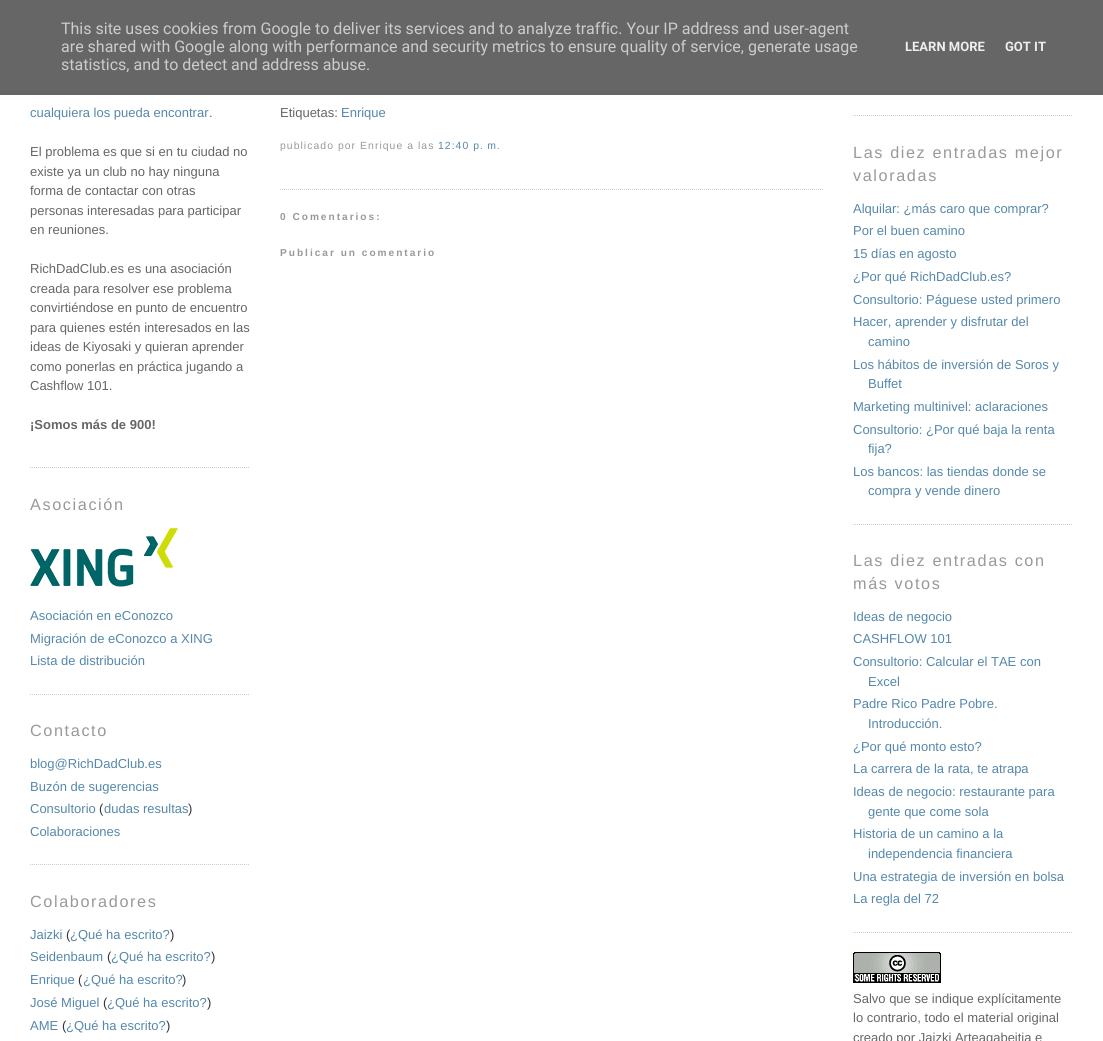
import math
import cairocffi as cairo

surface = cairo.ImageSurface(cairo.FORMAT_RGB24, 1103, 1041)
cr = cairo.Context(surface)
options = cairo.FontOptions()
options.set_hint_metrics(cairo.HINT_METRICS_OFF)
options.set_hint_style(cairo.HINT_STYLE_NONE)
cr.set_font_options(options)
cr.set_miter_limit(4)


def use_color(code):
    cr.set_source_rgb(*(v / 255 for v in bytes.fromhex(code[-6:])))


def spaced_text(x, y, s, letter, word):
    cr.move_to(x, y)
    for ch in s:
        cr.show_text(ch)
        cr.rel_move_to(letter + word * (ch == ' '), 0)


def picture(path, x, y, w, h):
    cr.save()
    cr.set_source_surface(cairo.ImageSurface.create_from_png(path), x, y)
    cr.rectangle(x, y, w, h)
    cr.fill()
    cr.restore()


use_color("#ffffff")
cr.paint()
use_color("#666666")
cr.rectangle(0, 0, 1103, 95)
cr.fill()
cr.select_font_face("Roboto")
cr.set_font_size(16)
use_color("#cccccc")
cr.move_to(61, 34)
cr.show_text("This site uses cookies from Google to deliver its services and to analyze traffic. Your IP address and user-agent")
cr.move_to(61, 52)
cr.show_text("are shared with Google along with performance and security metrics to ensure quality of service, generate usage")
cr.move_to(61, 70)
cr.show_text("statistics, and to detect and address abuse.")
cr.select_font_face("Roboto", cairo.FONT_SLANT_NORMAL, cairo.FONT_WEIGHT_BOLD)
cr.set_font_size(13)
use_color("#eeeeee")
cr.move_to(905, 51)
cr.show_text("LEARN MORE")
cr.move_to(1005, 51)
cr.show_text("GOT IT")
cr.new_path()
cr.move_to(30, 467.5)
cr.line_to(250, 467.5)
use_color("#cccccc")
cr.set_line_width(1)
cr.set_dash([1, 1])
cr.stroke()
cr.select_font_face("Liberation Sans")
use_color("#5588aa")
cr.move_to(30, 117)
cr.show_text("cualquiera los pueda encontrar")
use_color("#666666")
cr.move_to(209, 117)
cr.show_text(".")
cr.move_to(30, 156)
cr.show_text("El problema es que si en tu ciudad no")
cr.move_to(30, 176)
cr.show_text("existe ya un club no hay ninguna")
cr.move_to(30, 195)
cr.show_text("forma de contactar con otras")
cr.move_to(30, 215)
cr.show_text("personas interesadas para participar")
cr.move_to(30, 234)
cr.show_text("en reuniones.")
cr.move_to(30, 273)
cr.show_text("RichDadClub.es es una asociación")
cr.move_to(30, 293)
cr.show_text("creada para resolver ese problema")
cr.move_to(30, 312)
cr.show_text("convirtiéndose en punto de encuentro")
cr.move_to(30, 332)
cr.show_text("para quienes estén interesados en las")
cr.move_to(30, 351)
cr.show_text("ideas de Kiyosaki y quieran aprender")
cr.move_to(30, 371)
cr.show_text("como ponerlas en práctica jugando a")
cr.move_to(30, 390)
cr.show_text("Cashflow 101.")
cr.select_font_face("Liberation Sans", cairo.FONT_SLANT_NORMAL, cairo.FONT_WEIGHT_BOLD)
cr.move_to(30, 429)
cr.show_text("¡Somos más de 900!")
cr.select_font_face("Liberation Sans")
cr.set_font_size(16.25)
use_color("#999999")
spaced_text(30, 510, "Asociación", 1.6, 0)
cr.new_path()
cr.move_to(30, 694.5)
cr.line_to(250, 694.5)
use_color("#cccccc")
cr.stroke()
picture("img1.png", 30, 528, 148, 59)
cr.set_font_size(13)
use_color("#5588aa")
cr.move_to(30, 620)
cr.show_text("Asociación en eConozco")
cr.move_to(30, 643)
cr.show_text("Migración de eConozco a XING")
cr.move_to(30, 665)
cr.show_text("Lista de distribución")
cr.set_font_size(16.25)
use_color("#999999")
spaced_text(30, 736, "Contacto", 1.6, 0)
cr.new_path()
cr.move_to(30, 864.5)
cr.line_to(250, 864.5)
use_color("#cccccc")
cr.stroke()
cr.set_font_size(13)
use_color("#5588aa")
cr.move_to(30, 768)
cr.show_text("blog@RichDadClub.es")
cr.move_to(30, 791)
cr.show_text("Buzón de sugerencias")
cr.move_to(30, 813)
cr.show_text("Consultorio")
use_color("#333333")
cr.move_to(99, 813)
cr.show_text("(")
use_color("#5588aa")
cr.move_to(104, 813)
cr.show_text("dudas resultas")
use_color("#333333")
cr.move_to(188, 813)
cr.show_text(")")
use_color("#5588aa")
cr.move_to(30, 836)
cr.show_text("Colaboraciones")
cr.set_font_size(16.25)
use_color("#999999")
spaced_text(30, 907, "Colaboradores", 1.6, 0)
cr.set_font_size(13)
use_color("#5588aa")
cr.move_to(30, 939)
cr.show_text("Jaizki")
use_color("#333333")
cr.move_to(66, 939)
cr.show_text("(")
use_color("#5588aa")
cr.move_to(70, 939)
cr.show_text("¿Qué ha escrito?")
use_color("#333333")
cr.move_to(170, 939)
cr.show_text(")")
use_color("#5588aa")
cr.move_to(30, 961)
cr.show_text("Seidenbaum")
use_color("#333333")
cr.move_to(107, 961)
cr.show_text("(")
use_color("#5588aa")
cr.move_to(111, 961)
cr.show_text("¿Qué ha escrito?")
use_color("#333333")
cr.move_to(211, 961)
cr.show_text(")")
use_color("#5588aa")
cr.move_to(30, 984)
cr.show_text("Enrique")
use_color("#333333")
cr.move_to(78, 984)
cr.show_text("(")
use_color("#5588aa")
cr.move_to(83, 984)
cr.show_text("¿Qué ha escrito?")
use_color("#333333")
cr.move_to(182, 984)
cr.show_text(")")
use_color("#5588aa")
cr.move_to(30, 1007)
cr.show_text("José Miguel")
use_color("#333333")
cr.move_to(103, 1007)
cr.show_text("(")
use_color("#5588aa")
cr.move_to(107, 1007)
cr.show_text("¿Qué ha escrito?")
use_color("#333333")
cr.move_to(207, 1007)
cr.show_text(")")
use_color("#5588aa")
cr.move_to(30, 1030)
cr.show_text("AME")
use_color("#333333")
cr.move_to(62, 1030)
cr.show_text("(")
use_color("#5588aa")
cr.move_to(66, 1030)
cr.show_text("¿Qué ha escrito?")
use_color("#333333")
cr.move_to(166, 1030)
cr.show_text(")")
cr.new_path()
cr.move_to(280, 189.5)
cr.line_to(823, 189.5)
use_color("#cccccc")
cr.stroke()
use_color("#666666")
cr.move_to(280, 117)
cr.show_text("Etiquetas:")
use_color("#5588aa")
cr.move_to(341, 117)
cr.show_text("Enrique")
cr.set_font_size(10.4)
use_color("#999999")
spaced_text(280, 149, "publicado por Enrique a las", 1.05, 0)
use_color("#5588aa")
spaced_text(438, 149, "12:40 p. m.", 1.05, 0)
cr.select_font_face("Liberation Sans", cairo.FONT_SLANT_NORMAL, cairo.FONT_WEIGHT_BOLD)
cr.set_font_size(10.1)
use_color("#999999")
spaced_text(280, 220, "0 Comentarios:", 2, 0)
spaced_text(280, 256, "Publicar un comentario", 2, 0)
cr.new_path()
cr.move_to(853, 115.5)
cr.line_to(1073, 115.5)
use_color("#cccccc")
cr.stroke()
cr.select_font_face("Liberation Sans")
cr.set_font_size(16.25)
use_color("#999999")
spaced_text(853, 158, "Las diez entradas mejor", 1.6, 0)
spaced_text(853, 181, "valoradas", 1.6, 0)
cr.new_path()
cr.move_to(853, 524.5)
cr.line_to(1073, 524.5)
use_color("#cccccc")
cr.stroke()
cr.set_font_size(13)
use_color("#5588aa")
cr.move_to(853, 213)
cr.show_text("Alquilar: ¿más caro que comprar?")
cr.move_to(853, 235)
cr.show_text("Por el buen camino")
cr.move_to(853, 258)
cr.show_text("15 días en agosto")
cr.move_to(853, 281)
cr.show_text("¿Por qué RichDadClub.es?")
cr.move_to(853, 304)
cr.show_text("Consultorio: Páguese usted primero")
cr.move_to(853, 326)
cr.show_text("Hacer, aprender y disfrutar del")
cr.move_to(868, 346)
cr.show_text("camino")
cr.move_to(853, 369)
cr.show_text("Los hábitos de inversión de Soros y")
cr.move_to(868, 388)
cr.show_text("Buffet")
cr.move_to(853, 411)
cr.show_text("Marketing multinivel: aclaraciones")
cr.move_to(853, 434)
cr.show_text("Consultorio: ¿Por qué baja la renta")
cr.move_to(868, 453)
cr.show_text("fija?")
cr.move_to(853, 476)
cr.show_text("Los bancos: las tiendas donde se")
cr.move_to(868, 495)
cr.show_text("compra y vende dinero")
cr.set_font_size(16.25)
use_color("#999999")
spaced_text(853, 566, "Las diez entradas con", 1.6, 0)
spaced_text(853, 589, "más votos", 1.6, 0)
cr.new_path()
cr.move_to(853, 932.5)
cr.line_to(1073, 932.5)
use_color("#cccccc")
cr.stroke()
cr.set_font_size(13)
use_color("#5588aa")
cr.move_to(853, 621)
cr.show_text("Ideas de negocio")
cr.move_to(853, 643)
cr.show_text("CASHFLOW 101")
cr.move_to(853, 666)
cr.show_text("Consultorio: Calcular el TAE con")
cr.move_to(868, 686)
cr.show_text("Excel")
cr.move_to(853, 708)
cr.show_text("Padre Rico Padre Pobre.")
cr.move_to(868, 728)
cr.show_text("Introducción.")
cr.move_to(853, 751)
cr.show_text("¿Por qué monto esto?")
cr.move_to(853, 773)
cr.show_text("La carrera de la rata, te atrapa")
cr.move_to(853, 796)
cr.show_text("Ideas de negocio: restaurante para")
cr.move_to(868, 816)
cr.show_text("gente que come sola")
cr.move_to(853, 838)
cr.show_text("Historia de un camino a la")
cr.move_to(868, 858)
cr.show_text("independencia financiera")
cr.move_to(853, 881)
cr.show_text("Una estrategia de inversión en bolsa")
cr.move_to(853, 903)
cr.show_text("La regla del 72")
picture("img2.png", 853, 952, 88, 31)
use_color("#666666")
cr.move_to(853, 1003)
cr.show_text("Salvo que se indique explícitamente")
cr.move_to(853, 1022)
cr.show_text("lo contrario, todo el material original")
cr.move_to(853, 1042)
cr.show_text("creado por Jaizki Arteagabeitia e")
surface.write_to_png("result.png")
